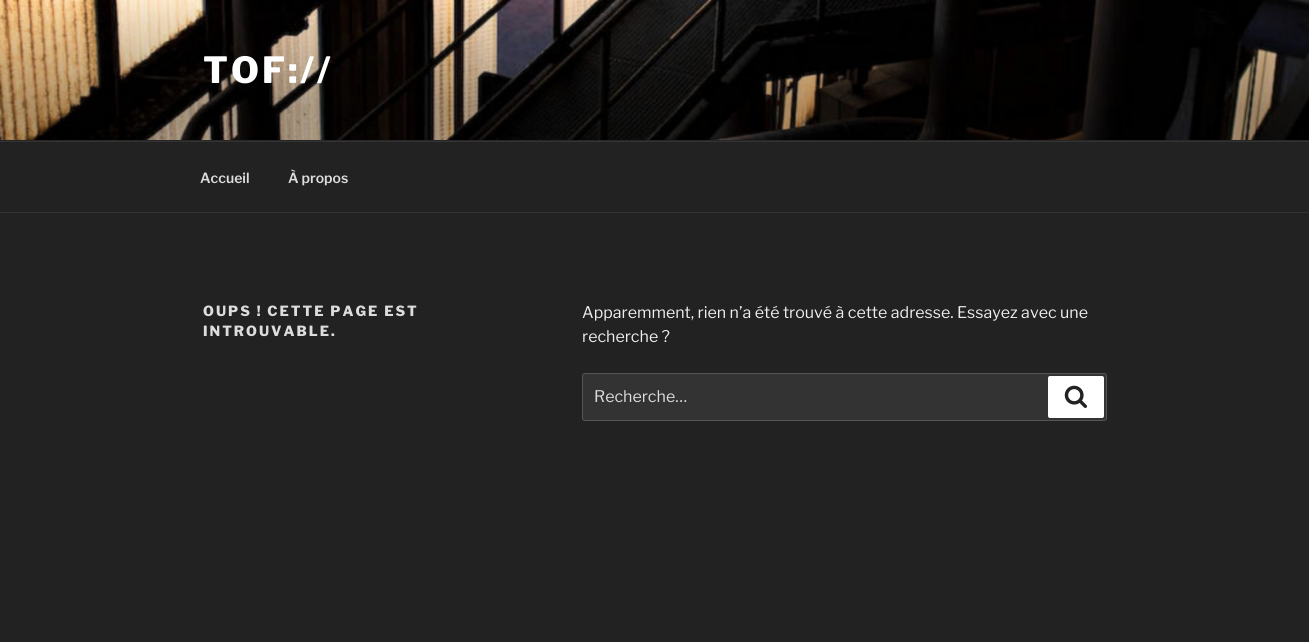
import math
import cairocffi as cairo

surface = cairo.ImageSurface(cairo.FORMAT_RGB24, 1309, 642)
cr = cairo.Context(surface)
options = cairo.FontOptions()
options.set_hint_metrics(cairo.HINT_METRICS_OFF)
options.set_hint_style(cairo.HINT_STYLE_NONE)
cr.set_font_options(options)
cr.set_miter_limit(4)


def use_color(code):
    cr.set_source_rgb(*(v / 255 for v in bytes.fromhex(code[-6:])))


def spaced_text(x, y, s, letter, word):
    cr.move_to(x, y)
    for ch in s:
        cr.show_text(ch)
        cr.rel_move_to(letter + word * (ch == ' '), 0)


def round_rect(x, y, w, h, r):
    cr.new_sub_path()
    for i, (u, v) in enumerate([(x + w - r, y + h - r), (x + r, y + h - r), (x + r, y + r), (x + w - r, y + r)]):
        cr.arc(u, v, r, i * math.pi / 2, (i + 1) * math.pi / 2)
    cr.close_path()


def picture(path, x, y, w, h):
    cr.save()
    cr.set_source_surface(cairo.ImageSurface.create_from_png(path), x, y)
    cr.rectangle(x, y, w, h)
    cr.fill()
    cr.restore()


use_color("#222222")
cr.paint()
use_color("#262626")
cr.rectangle(0, 140, 1309, 1)
cr.fill()
picture("img1.png", 0, 0, 1309, 140)
cr.select_font_face("Libre Franklin Thin")
cr.set_font_size(36)
use_color("#ffffff")
spaced_text(203, 83, "TOF://", 3, 0)
use_color("#333333")
cr.rectangle(0, 141, 1309, 1)
cr.fill()
cr.rectangle(0, 212, 1309, 1)
cr.fill()
cr.select_font_face("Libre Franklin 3 Thin")
cr.set_font_size(14)
use_color("#dddddd")
cr.move_to(200, 183)
cr.show_text("Accueil")
cr.move_to(288, 183)
cr.show_text("À propos")
cr.select_font_face("Libre Franklin Thin")
spaced_text(203, 316, "OUPS ! CETTE PAGE EST", 2, 0)
spaced_text(203, 336, "INTROUVABLE.", 2, 0)
cr.select_font_face("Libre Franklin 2 Thin")
cr.set_font_size(16)
use_color("#eeeeee")
cr.move_to(582, 318)
cr.show_text("Apparemment, rien n’a été trouvé à cette adresse. Essayez avec une")
cr.move_to(582, 342)
cr.show_text("recherche ?")
use_color("#333333")
round_rect(582.5, 373.5, 524, 47, 2.5)
cr.fill_preserve()
use_color("#555555")
cr.set_line_width(1)
cr.stroke()
use_color("#dddddd")
cr.move_to(594, 402)
cr.show_text("Recherche…")
use_color("#ffffff")
round_rect(1048, 376, 56, 42, 2)
cr.fill()
picture("img2.png", 1064, 385, 23, 23)
surface.write_to_png("result.png")
